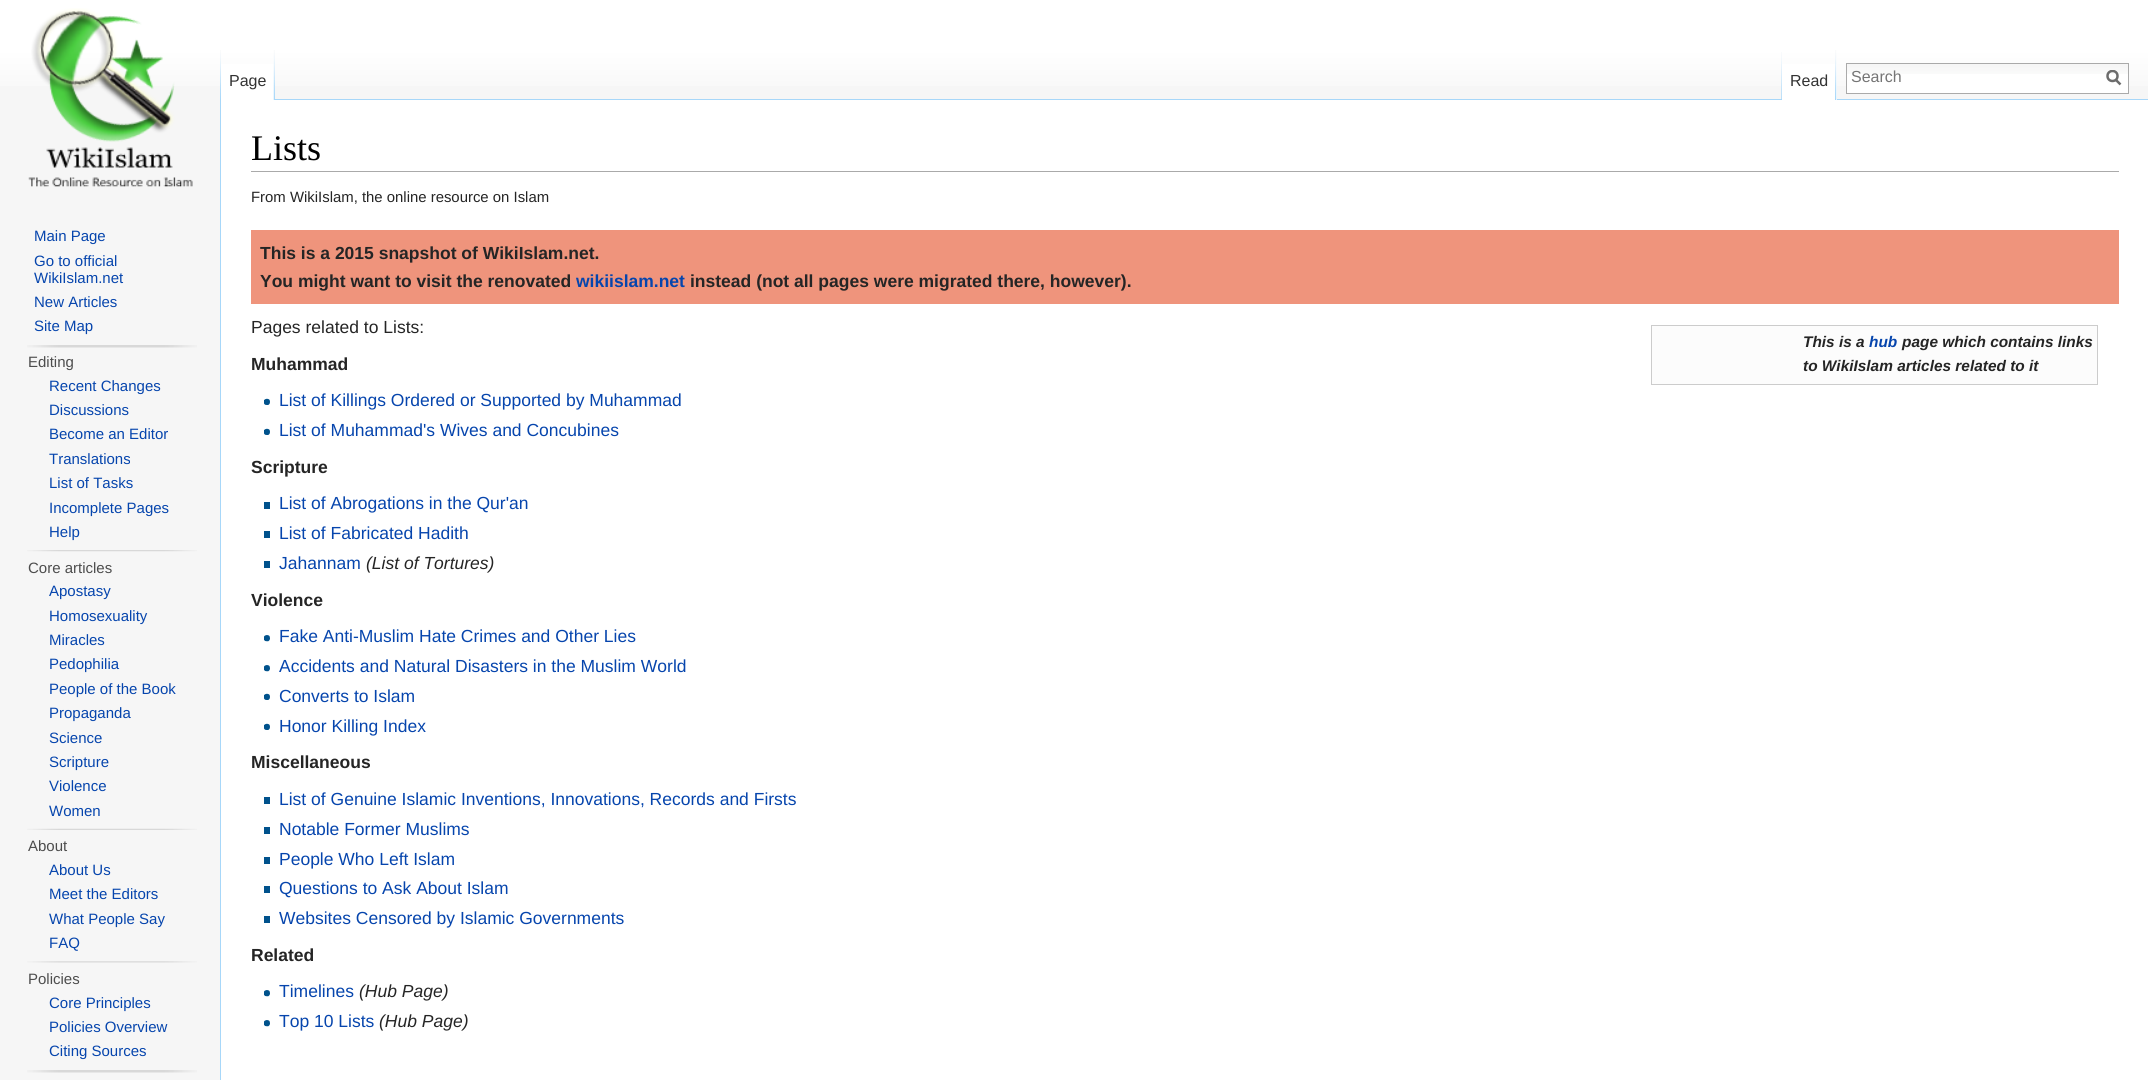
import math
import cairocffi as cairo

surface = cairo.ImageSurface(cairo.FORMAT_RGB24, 2148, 1080)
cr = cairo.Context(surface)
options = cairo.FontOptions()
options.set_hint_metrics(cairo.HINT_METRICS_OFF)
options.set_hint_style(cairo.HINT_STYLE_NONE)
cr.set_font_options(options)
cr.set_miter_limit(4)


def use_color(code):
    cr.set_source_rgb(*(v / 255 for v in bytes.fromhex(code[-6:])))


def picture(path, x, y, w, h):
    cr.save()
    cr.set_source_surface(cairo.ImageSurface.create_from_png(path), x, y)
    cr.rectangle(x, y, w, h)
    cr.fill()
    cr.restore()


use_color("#f6f6f6")
cr.paint()
gradient = cairo.LinearGradient(1074, 0, 1074, 100)
gradient.add_color_stop_rgba(0.5, 1, 1, 1, 1)
gradient.add_color_stop_rgba(1, 0.965, 0.965, 0.965, 1)
cr.set_source(gradient)
cr.rectangle(0, 0, 2148, 86)
cr.fill()
picture("img1.png", 220, 50, 1, 49)
use_color("#ffffff")
cr.rectangle(221, 64, 53, 36)
cr.fill()
picture("img2.png", 273, 50, 2, 50)
cr.select_font_face("Liberation Sans")
cr.set_font_size(16)
use_color("#333333")
cr.move_to(229, 86)
cr.show_text("Page")
picture("img3.png", 1781, 52, 1, 47)
use_color("#a7d7f9")
cr.rectangle(275, 99, 1873, 1)
cr.fill()
use_color("#ffffff")
cr.rectangle(1782, 64, 55, 36)
cr.fill()
picture("img4.png", 1835, 50, 2, 50)
use_color("#333333")
cr.move_to(1790, 86)
cr.show_text("Read")
use_color("#ffffff")
cr.rectangle(1847, 74, 281, 19)
cr.fill()
picture("img5.png", 1847, 64, 281, 10)
cr.rectangle(1846.5, 63.5, 282, 30)
use_color("#aaaaaa")
cr.set_line_width(1)
cr.stroke()
use_color("#757575")
cr.move_to(1851, 82)
cr.show_text("Search")
cr.new_path()
cr.move_to(2120.5, 84.5)
cr.line_to(2115.5, 79.5)
use_color("#6c6c6c")
cr.set_line_width(2.5)
cr.stroke()
cr.save()
cr.rectangle(2106, 70, 15, 16)
cr.clip()
cr.arc(2112.5, 76, 5, 0, 2 * math.pi)
cr.stroke()
cr.restore()
picture("img6.png", 28, 8, 165, 179)
cr.set_font_size(15)
use_color("#0645ad")
cr.move_to(34, 241)
cr.show_text("Main Page")
cr.move_to(34, 266)
cr.show_text("Go to official")
cr.move_to(34, 283)
cr.show_text("WikiIslam.net")
cr.move_to(34, 307)
cr.show_text("New Articles")
cr.move_to(34, 331)
cr.show_text("Site Map")
picture("img7.png", 27, 345, 170, 3)
use_color("#4d4d4d")
cr.move_to(28, 367)
cr.show_text("Editing")
use_color("#0645ad")
cr.move_to(49, 391)
cr.show_text("Recent Changes")
cr.move_to(49, 415)
cr.show_text("Discussions")
cr.move_to(49, 439)
cr.show_text("Become an Editor")
cr.move_to(49, 464)
cr.show_text("Translations")
cr.move_to(49, 488)
cr.show_text("List of Tasks")
cr.move_to(49, 513)
cr.show_text("Incomplete Pages")
cr.move_to(49, 537)
cr.show_text("Help")
picture("img8.png", 27, 550, 170, 2)
use_color("#4d4d4d")
cr.move_to(28, 573)
cr.show_text("Core articles")
use_color("#0645ad")
cr.move_to(49, 596)
cr.show_text("Apostasy")
cr.move_to(49, 621)
cr.show_text("Homosexuality")
cr.move_to(49, 645)
cr.show_text("Miracles")
cr.move_to(49, 669)
cr.show_text("Pedophilia")
cr.move_to(49, 694)
cr.show_text("People of the Book")
cr.move_to(49, 718)
cr.show_text("Propaganda")
cr.move_to(49, 743)
cr.show_text("Science")
cr.move_to(49, 767)
cr.show_text("Scripture")
cr.move_to(49, 791)
cr.show_text("Violence")
cr.move_to(49, 816)
cr.show_text("Women")
picture("img9.png", 27, 828, 170, 2)
use_color("#4d4d4d")
cr.move_to(28, 851)
cr.show_text("About")
use_color("#0645ad")
cr.move_to(49, 875)
cr.show_text("About Us")
cr.move_to(49, 899)
cr.show_text("Meet the Editors")
cr.move_to(49, 924)
cr.show_text("What People Say")
cr.move_to(49, 948)
cr.show_text("FAQ")
picture("img10.png", 27, 961, 170, 2)
use_color("#4d4d4d")
cr.move_to(28, 984)
cr.show_text("Policies")
use_color("#0645ad")
cr.move_to(49, 1008)
cr.show_text("Core Principles")
cr.move_to(49, 1032)
cr.show_text("Policies Overview")
cr.move_to(49, 1056)
cr.show_text("Citing Sources")
picture("img7.png", 27, 1070, 170, 3)
use_color("#ffffff")
cr.rectangle(221, 100, 1927, 980)
cr.fill()
use_color("#a7d7f9")
cr.rectangle(220, 99, 1, 981)
cr.fill()
use_color("#aaaaaa")
cr.rectangle(251, 171, 1868, 1)
cr.fill()
cr.select_font_face("Liberation Serif")
cr.set_font_size(36)
use_color("#000000")
cr.move_to(251, 160)
cr.show_text("Lists")
cr.select_font_face("Liberation Sans")
cr.set_font_size(14.9)
use_color("#252525")
cr.move_to(251, 202)
cr.show_text("From WikiIslam, the online resource on Islam")
use_color("#ef947c")
cr.rectangle(251, 230, 1868, 74)
cr.fill()
cr.select_font_face("Liberation Sans", cairo.FONT_SLANT_NORMAL, cairo.FONT_WEIGHT_BOLD)
cr.set_font_size(17.5)
use_color("#252525")
cr.move_to(260, 259)
cr.show_text("This is a 2015 snapshot of WikiIslam.net.")
cr.move_to(260, 287)
cr.show_text("You might want to visit the renovated")
use_color("#0645ad")
cr.move_to(576, 287)
cr.show_text("wikiislam.net")
use_color("#252525")
cr.move_to(690, 287)
cr.show_text("instead (not all pages were migrated there, however).")
cr.select_font_face("Liberation Sans")
cr.move_to(251, 333)
cr.show_text("Pages related to Lists:")
cr.select_font_face("Liberation Sans", cairo.FONT_SLANT_NORMAL, cairo.FONT_WEIGHT_BOLD)
cr.move_to(251, 370)
cr.show_text("Muhammad")
use_color("#fcfcfc")
cr.rectangle(1651.5, 325.5, 446, 59)
cr.fill_preserve()
use_color("#cccccc")
cr.set_line_width(1)
cr.stroke()
cr.select_font_face("Liberation Sans", cairo.FONT_SLANT_ITALIC, cairo.FONT_WEIGHT_BOLD)
cr.set_font_size(15.4)
use_color("#252525")
cr.move_to(1803, 347)
cr.show_text("This is a")
use_color("#0645ad")
cr.move_to(1869, 347)
cr.show_text("hub")
use_color("#252525")
cr.move_to(1902, 347)
cr.show_text("page which contains links")
cr.move_to(1803, 371)
cr.show_text("to WikiIslam articles related to it")
picture("img11.png", 264, 398, 6, 7)
cr.select_font_face("Liberation Sans")
cr.set_font_size(17.5)
use_color("#0645ad")
cr.move_to(279, 406)
cr.show_text("List of Killings Ordered or Supported by Muhammad")
picture("img11.png", 264, 428, 6, 7)
cr.move_to(279, 436)
cr.show_text("List of Muhammad's Wives and Concubines")
cr.select_font_face("Liberation Sans", cairo.FONT_SLANT_NORMAL, cairo.FONT_WEIGHT_BOLD)
use_color("#252525")
cr.move_to(251, 473)
cr.show_text("Scripture")
use_color("#00528c")
cr.rectangle(264, 502, 6, 7)
cr.fill()
cr.select_font_face("Liberation Sans")
use_color("#0645ad")
cr.move_to(279, 509)
cr.show_text("List of Abrogations in the Qur'an")
use_color("#00528c")
cr.rectangle(264, 531, 6, 7)
cr.fill()
use_color("#0645ad")
cr.move_to(279, 539)
cr.show_text("List of Fabricated Hadith")
use_color("#00528c")
cr.rectangle(264, 561, 6, 7)
cr.fill()
use_color("#0645ad")
cr.move_to(279, 569)
cr.show_text("Jahannam")
cr.select_font_face("Liberation Sans", cairo.FONT_SLANT_ITALIC)
use_color("#252525")
cr.move_to(366, 569)
cr.show_text("(List of Tortures)")
cr.select_font_face("Liberation Sans", cairo.FONT_SLANT_NORMAL, cairo.FONT_WEIGHT_BOLD)
cr.move_to(251, 606)
cr.show_text("Violence")
picture("img12.png", 264, 635, 6, 7)
cr.select_font_face("Liberation Sans")
use_color("#0645ad")
cr.move_to(279, 642)
cr.show_text("Fake Anti-Muslim Hate Crimes and Other Lies")
picture("img12.png", 264, 665, 6, 7)
cr.move_to(279, 672)
cr.show_text("Accidents and Natural Disasters in the Muslim World")
picture("img11.png", 264, 693, 6, 7)
cr.move_to(279, 702)
cr.show_text("Converts to Islam")
picture("img11.png", 264, 723, 6, 7)
cr.move_to(279, 732)
cr.show_text("Honor Killing Index")
cr.select_font_face("Liberation Sans", cairo.FONT_SLANT_NORMAL, cairo.FONT_WEIGHT_BOLD)
use_color("#252525")
cr.move_to(251, 768)
cr.show_text("Miscellaneous")
use_color("#00528c")
cr.rectangle(264, 797, 6, 7)
cr.fill()
cr.select_font_face("Liberation Sans")
use_color("#0645ad")
cr.move_to(279, 805)
cr.show_text("List of Genuine Islamic Inventions, Innovations, Records and Firsts")
use_color("#00528c")
cr.rectangle(264, 827, 6, 7)
cr.fill()
use_color("#0645ad")
cr.move_to(279, 835)
cr.show_text("Notable Former Muslims")
use_color("#00528c")
cr.rectangle(264, 857, 6, 7)
cr.fill()
use_color("#0645ad")
cr.move_to(279, 865)
cr.show_text("People Who Left Islam")
use_color("#00528c")
cr.rectangle(264, 886, 6, 7)
cr.fill()
use_color("#0645ad")
cr.move_to(279, 894)
cr.show_text("Questions to Ask About Islam")
use_color("#00528c")
cr.rectangle(264, 916, 6, 7)
cr.fill()
use_color("#0645ad")
cr.move_to(279, 924)
cr.show_text("Websites Censored by Islamic Governments")
cr.select_font_face("Liberation Sans", cairo.FONT_SLANT_NORMAL, cairo.FONT_WEIGHT_BOLD)
use_color("#252525")
cr.move_to(251, 961)
cr.show_text("Related")
picture("img12.png", 264, 990, 6, 7)
cr.select_font_face("Liberation Sans")
use_color("#0645ad")
cr.move_to(279, 997)
cr.show_text("Timelines")
cr.select_font_face("Liberation Sans", cairo.FONT_SLANT_ITALIC)
use_color("#252525")
cr.move_to(359, 997)
cr.show_text("(Hub Page)")
picture("img12.png", 264, 1020, 6, 7)
cr.select_font_face("Liberation Sans")
use_color("#0645ad")
cr.move_to(279, 1027)
cr.show_text("Top 10 Lists")
cr.select_font_face("Liberation Sans", cairo.FONT_SLANT_ITALIC)
use_color("#252525")
cr.move_to(379, 1027)
cr.show_text("(Hub Page)")
surface.write_to_png("result.png")
